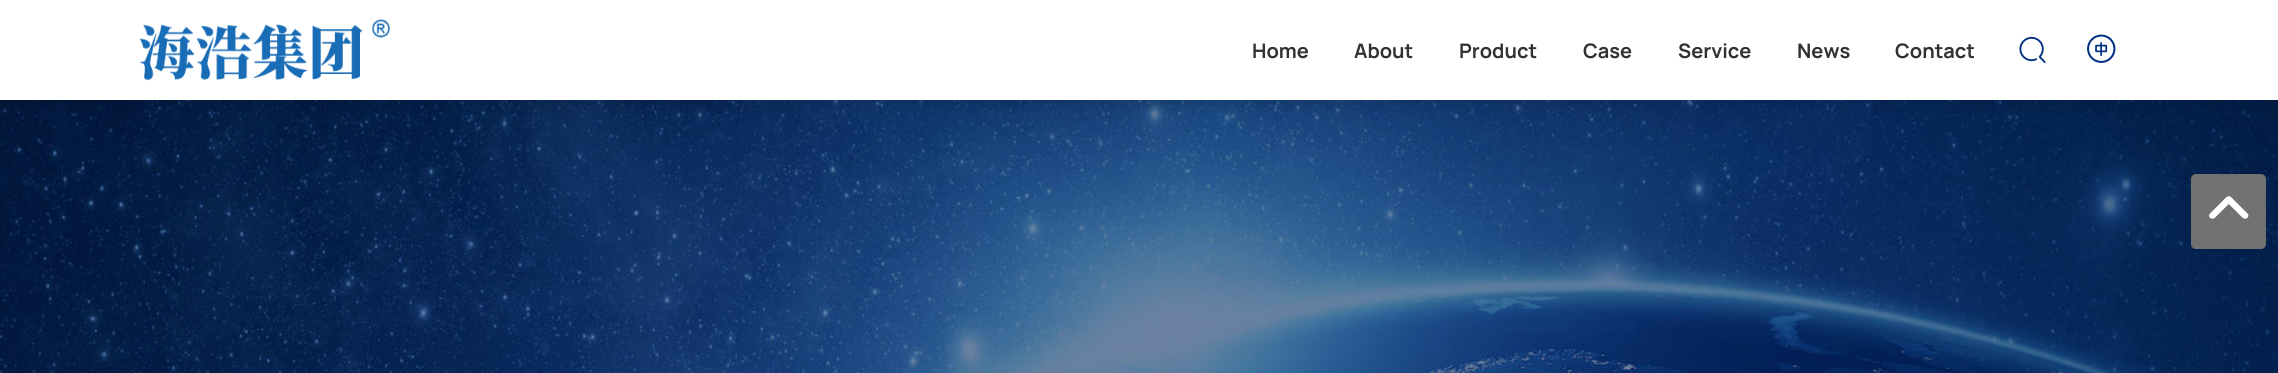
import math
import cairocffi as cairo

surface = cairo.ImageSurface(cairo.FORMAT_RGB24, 2278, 373)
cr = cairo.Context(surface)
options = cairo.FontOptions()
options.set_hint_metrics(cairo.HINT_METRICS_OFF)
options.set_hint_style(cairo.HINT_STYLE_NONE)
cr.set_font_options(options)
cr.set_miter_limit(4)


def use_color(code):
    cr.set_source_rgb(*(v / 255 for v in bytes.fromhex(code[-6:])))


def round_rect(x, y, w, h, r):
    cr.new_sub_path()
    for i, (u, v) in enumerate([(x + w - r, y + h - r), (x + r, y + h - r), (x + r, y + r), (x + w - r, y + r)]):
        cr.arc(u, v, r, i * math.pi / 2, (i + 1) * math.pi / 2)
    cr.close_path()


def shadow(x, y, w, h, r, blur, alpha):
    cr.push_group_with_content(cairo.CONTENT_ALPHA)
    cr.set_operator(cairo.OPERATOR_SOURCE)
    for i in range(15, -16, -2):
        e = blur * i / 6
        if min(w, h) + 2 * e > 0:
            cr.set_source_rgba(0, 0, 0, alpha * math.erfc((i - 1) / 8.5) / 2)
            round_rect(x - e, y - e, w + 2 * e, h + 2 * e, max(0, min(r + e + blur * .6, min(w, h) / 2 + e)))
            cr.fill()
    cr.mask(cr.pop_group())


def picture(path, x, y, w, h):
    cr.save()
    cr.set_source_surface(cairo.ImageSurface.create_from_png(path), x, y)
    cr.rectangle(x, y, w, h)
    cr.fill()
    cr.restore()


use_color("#ffffff")
cr.paint()
picture("img4.png", 0, 100, 2278, 273)
use_color("#000000")
shadow(0, 0, 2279, 100, 0, 9.5, 0.2)
use_color("#ffffff")
cr.rectangle(0, 0, 2278, 100)
cr.fill()
picture("img1.png", 140, 19, 250, 62)
cr.select_font_face("Manrope", cairo.FONT_SLANT_NORMAL, cairo.FONT_WEIGHT_BOLD)
cr.set_font_size(20)
use_color("#323232")
cr.move_to(1252, 58)
cr.show_text("Home")
cr.move_to(1354, 58)
cr.show_text("About")
cr.move_to(1459, 58)
cr.show_text("Product")
cr.move_to(1583, 58)
cr.show_text("Case")
cr.move_to(1678, 58)
cr.show_text("Service")
cr.move_to(1797, 58)
cr.show_text("News")
cr.move_to(1895, 58)
cr.show_text("Contact")
picture("img2.png", 2019, 36, 27, 28)
picture("img3.png", 2087, 34, 29, 29)
use_color("#717171")
round_rect(2191, 174, 75, 75, 5)
cr.fill()
picture("img5.png", 2209, 196, 40, 23)
surface.write_to_png("result.png")
